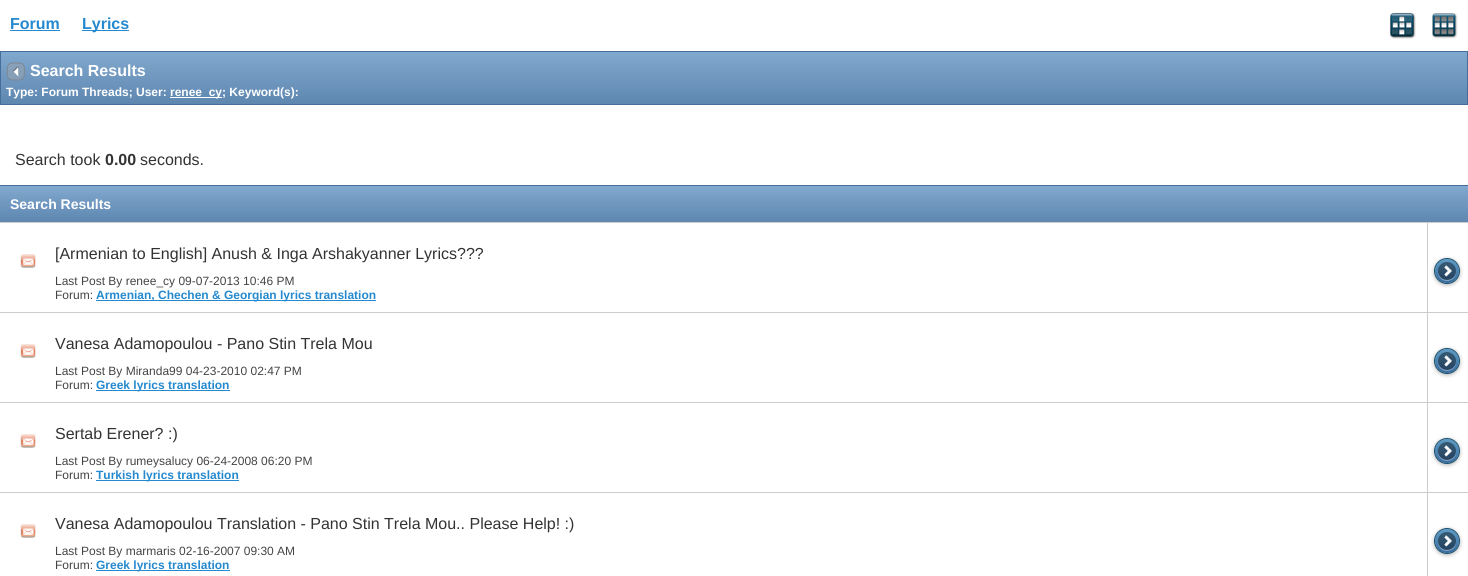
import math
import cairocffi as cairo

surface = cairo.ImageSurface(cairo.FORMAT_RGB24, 1468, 576)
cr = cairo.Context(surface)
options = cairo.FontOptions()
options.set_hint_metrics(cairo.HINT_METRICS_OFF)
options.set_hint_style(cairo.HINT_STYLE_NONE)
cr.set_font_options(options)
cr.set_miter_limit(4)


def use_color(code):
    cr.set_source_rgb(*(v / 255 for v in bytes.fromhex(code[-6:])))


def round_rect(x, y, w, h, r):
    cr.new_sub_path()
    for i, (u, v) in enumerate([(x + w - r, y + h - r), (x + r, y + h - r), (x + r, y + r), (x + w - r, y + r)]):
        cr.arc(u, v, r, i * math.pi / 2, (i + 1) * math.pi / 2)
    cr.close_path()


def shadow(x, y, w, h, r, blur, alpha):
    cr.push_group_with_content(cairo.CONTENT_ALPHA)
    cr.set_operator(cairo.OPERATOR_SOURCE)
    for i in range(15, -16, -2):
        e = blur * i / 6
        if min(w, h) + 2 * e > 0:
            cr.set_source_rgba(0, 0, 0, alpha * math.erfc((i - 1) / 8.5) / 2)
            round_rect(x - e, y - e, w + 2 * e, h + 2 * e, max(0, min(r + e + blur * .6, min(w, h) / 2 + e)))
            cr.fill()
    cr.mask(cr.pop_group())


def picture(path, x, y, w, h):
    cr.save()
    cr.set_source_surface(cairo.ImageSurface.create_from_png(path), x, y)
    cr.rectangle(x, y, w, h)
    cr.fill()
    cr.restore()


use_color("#ffffff")
cr.paint()
cr.select_font_face("Liberation Sans", cairo.FONT_SLANT_NORMAL, cairo.FONT_WEIGHT_BOLD)
cr.set_font_size(16)
use_color("#2489ce")
cr.move_to(10, 29)
cr.show_text("Forum")
cr.rectangle(10, 30, 50, 1)
cr.fill()
cr.rectangle(82, 30, 47, 1)
cr.fill()
cr.move_to(82, 29)
cr.show_text("Lyrics")
picture("img1.png", 1389, 12, 27, 27)
picture("img2.png", 1432, 13, 26, 26)
gradient = cairo.LinearGradient(734, 52, 734, 104)
gradient.add_color_stop_rgba(0, 0.506, 0.659, 0.808, 1)
gradient.add_color_stop_rgba(1, 0.369, 0.529, 0.69, 1)
cr.set_source(gradient)
cr.rectangle(1, 52, 1466, 52)
cr.fill()
cr.rectangle(0.5, 51.5, 1467, 53)
use_color("#456f9a")
cr.set_line_width(1)
cr.stroke()
picture("img3.png", 6, 62, 19, 19)
use_color("#ffffff")
cr.move_to(30, 76)
cr.show_text("Search Results")
cr.set_font_size(12)
cr.move_to(6, 96)
cr.show_text("Type: Forum Threads; User:")
cr.rectangle(170, 97, 52, 1)
cr.fill()
cr.move_to(170, 96)
cr.show_text("renee_cy; Keyword(s):")
cr.select_font_face("Liberation Sans")
cr.set_font_size(16)
use_color("#333333")
cr.move_to(15, 165)
cr.show_text("Search took")
cr.select_font_face("Liberation Sans", cairo.FONT_SLANT_NORMAL, cairo.FONT_WEIGHT_BOLD)
cr.move_to(105, 165)
cr.show_text("0.00")
cr.select_font_face("Liberation Sans")
cr.move_to(140, 165)
cr.show_text("seconds.")
gradient = cairo.LinearGradient(734, 186, 734, 222)
gradient.add_color_stop_rgba(0, 0.506, 0.659, 0.808, 1)
gradient.add_color_stop_rgba(1, 0.369, 0.529, 0.69, 1)
cr.set_source(gradient)
cr.rectangle(0, 186, 1468, 36)
cr.fill()
use_color("#456f9a")
cr.rectangle(0, 185, 1468, 1)
cr.fill()
cr.select_font_face("Liberation Sans", cairo.FONT_SLANT_NORMAL, cairo.FONT_WEIGHT_BOLD)
cr.set_font_size(14)
use_color("#ffffff")
cr.move_to(10, 209)
cr.show_text("Search Results")
use_color("#cccccc")
cr.rectangle(0, 222, 1468, 1)
cr.fill()
picture("img4.png", 20, 254, 16, 14)
cr.select_font_face("Liberation Sans")
cr.set_font_size(16)
use_color("#333333")
cr.move_to(55, 259)
cr.show_text("[Armenian to English] Anush & Inga Arshakyanner Lyrics???")
cr.set_font_size(12)
use_color("#444444")
cr.move_to(55, 285)
cr.show_text("Last Post By renee_cy 09-07-2013 10:46 PM")
cr.move_to(55, 299)
cr.show_text("Forum:")
use_color("#2489ce")
cr.rectangle(96, 300, 280, 1)
cr.fill()
cr.select_font_face("Liberation Sans", cairo.FONT_SLANT_NORMAL, cairo.FONT_WEIGHT_BOLD)
cr.move_to(96, 299)
cr.show_text("Armenian, Chechen & Georgian lyrics translation")
use_color("#cccccc")
cr.rectangle(1427, 223, 1, 89)
cr.fill()
use_color("#000000")
shadow(1434, 259, 26, 26, 13, 2, 0.3)
gradient = cairo.LinearGradient(1447, 259, 1447, 283)
gradient.add_color_stop_rgba(0, 0.373, 0.612, 0.773, 1)
gradient.add_color_stop_rgba(1, 0.224, 0.42, 0.62, 1)
cr.set_source(gradient)
cr.arc(1447, 271, 12, 0, 2 * math.pi)
cr.fill()
cr.arc(1447, 271, 12.5, 0, 2 * math.pi)
use_color("#145072")
cr.stroke()
cr.set_source_rgba(1, 1, 1, 0.4)
cr.new_path()
cr.move_to(1456, 271.5)
cr.curve_to(1455.5, 282.5, 1438.5, 282.5, 1438, 271.5)
cr.curve_to(1437.5, 284, 1456.5, 284, 1456, 271.5)
cr.close_path()
cr.fill()
cr.set_source_rgba(0, 0, 0, 0.4)
cr.arc(1447, 271, 9, 0, 2 * math.pi)
cr.fill()
picture("img5.png", 1444, 265, 8, 12)
use_color("#cccccc")
cr.rectangle(0, 312, 1468, 1)
cr.fill()
picture("img4.png", 20, 344, 16, 14)
cr.select_font_face("Liberation Sans")
cr.set_font_size(16)
use_color("#333333")
cr.move_to(55, 349)
cr.show_text("Vanesa Adamopoulou - Pano Stin Trela Mou")
cr.set_font_size(12)
use_color("#444444")
cr.move_to(55, 375)
cr.show_text("Last Post By Miranda99 04-23-2010 02:47 PM")
cr.move_to(55, 389)
cr.show_text("Forum:")
use_color("#2489ce")
cr.rectangle(96, 390, 134, 1)
cr.fill()
cr.select_font_face("Liberation Sans", cairo.FONT_SLANT_NORMAL, cairo.FONT_WEIGHT_BOLD)
cr.move_to(96, 389)
cr.show_text("Greek lyrics translation")
use_color("#cccccc")
cr.rectangle(1427, 313, 1, 89)
cr.fill()
use_color("#000000")
shadow(1434, 349, 26, 26, 13, 2, 0.3)
gradient = cairo.LinearGradient(1447, 349, 1447, 373)
gradient.add_color_stop_rgba(0, 0.373, 0.612, 0.773, 1)
gradient.add_color_stop_rgba(1, 0.224, 0.42, 0.62, 1)
cr.set_source(gradient)
cr.arc(1447, 361, 12, 0, 2 * math.pi)
cr.fill()
cr.arc(1447, 361, 12.5, 0, 2 * math.pi)
use_color("#145072")
cr.stroke()
cr.set_source_rgba(1, 1, 1, 0.4)
cr.new_path()
cr.move_to(1456, 361.5)
cr.curve_to(1455.5, 372.5, 1438.5, 372.5, 1438, 361.5)
cr.curve_to(1437.5, 374, 1456.5, 374, 1456, 361.5)
cr.close_path()
cr.fill()
cr.set_source_rgba(0, 0, 0, 0.4)
cr.arc(1447, 361, 9, 0, 2 * math.pi)
cr.fill()
picture("img5.png", 1444, 355, 8, 12)
use_color("#cccccc")
cr.rectangle(0, 402, 1468, 1)
cr.fill()
picture("img4.png", 20, 434, 16, 14)
cr.select_font_face("Liberation Sans")
cr.set_font_size(16)
use_color("#333333")
cr.move_to(55, 439)
cr.show_text("Sertab Erener? :)")
cr.set_font_size(12)
use_color("#444444")
cr.move_to(55, 465)
cr.show_text("Last Post By rumeysalucy 06-24-2008 06:20 PM")
cr.move_to(55, 479)
cr.show_text("Forum:")
use_color("#2489ce")
cr.rectangle(96, 480, 143, 1)
cr.fill()
cr.select_font_face("Liberation Sans", cairo.FONT_SLANT_NORMAL, cairo.FONT_WEIGHT_BOLD)
cr.move_to(96, 479)
cr.show_text("Turkish lyrics translation")
use_color("#cccccc")
cr.rectangle(1427, 403, 1, 89)
cr.fill()
use_color("#000000")
shadow(1434, 439, 26, 26, 13, 2, 0.3)
gradient = cairo.LinearGradient(1447, 439, 1447, 463)
gradient.add_color_stop_rgba(0, 0.373, 0.612, 0.773, 1)
gradient.add_color_stop_rgba(1, 0.224, 0.42, 0.62, 1)
cr.set_source(gradient)
cr.arc(1447, 451, 12, 0, 2 * math.pi)
cr.fill()
cr.arc(1447, 451, 12.5, 0, 2 * math.pi)
use_color("#145072")
cr.stroke()
cr.set_source_rgba(1, 1, 1, 0.4)
cr.new_path()
cr.move_to(1456, 451.5)
cr.curve_to(1455.5, 462.5, 1438.5, 462.5, 1438, 451.5)
cr.curve_to(1437.5, 464, 1456.5, 464, 1456, 451.5)
cr.close_path()
cr.fill()
cr.set_source_rgba(0, 0, 0, 0.4)
cr.arc(1447, 451, 9, 0, 2 * math.pi)
cr.fill()
picture("img5.png", 1444, 445, 8, 12)
use_color("#cccccc")
cr.rectangle(0, 492, 1468, 1)
cr.fill()
picture("img4.png", 20, 524, 16, 14)
cr.select_font_face("Liberation Sans")
cr.set_font_size(16)
use_color("#333333")
cr.move_to(55, 529)
cr.show_text("Vanesa Adamopoulou Translation - Pano Stin Trela Mou.. Please Help! :)")
cr.set_font_size(12)
use_color("#444444")
cr.move_to(55, 555)
cr.show_text("Last Post By marmaris 02-16-2007 09:30 AM")
cr.move_to(55, 569)
cr.show_text("Forum:")
use_color("#2489ce")
cr.rectangle(96, 570, 134, 1)
cr.fill()
cr.select_font_face("Liberation Sans", cairo.FONT_SLANT_NORMAL, cairo.FONT_WEIGHT_BOLD)
cr.move_to(96, 569)
cr.show_text("Greek lyrics translation")
use_color("#cccccc")
cr.rectangle(1427, 493, 1, 83)
cr.fill()
use_color("#000000")
shadow(1434, 529, 26, 26, 13, 2, 0.3)
gradient = cairo.LinearGradient(1447, 529, 1447, 553)
gradient.add_color_stop_rgba(0, 0.373, 0.612, 0.773, 1)
gradient.add_color_stop_rgba(1, 0.224, 0.42, 0.62, 1)
cr.set_source(gradient)
cr.arc(1447, 541, 12, 0, 2 * math.pi)
cr.fill()
cr.arc(1447, 541, 12.5, 0, 2 * math.pi)
use_color("#145072")
cr.stroke()
cr.set_source_rgba(1, 1, 1, 0.4)
cr.new_path()
cr.move_to(1438, 541.5)
cr.curve_to(1437.5, 554, 1456.5, 554, 1456, 541.5)
cr.curve_to(1455.5, 552.5, 1438.5, 552.5, 1438, 541.5)
cr.close_path()
cr.fill()
cr.set_source_rgba(0, 0, 0, 0.4)
cr.arc(1447, 541, 9, 0, 2 * math.pi)
cr.fill()
picture("img5.png", 1444, 535, 8, 12)
surface.write_to_png("result.png")
